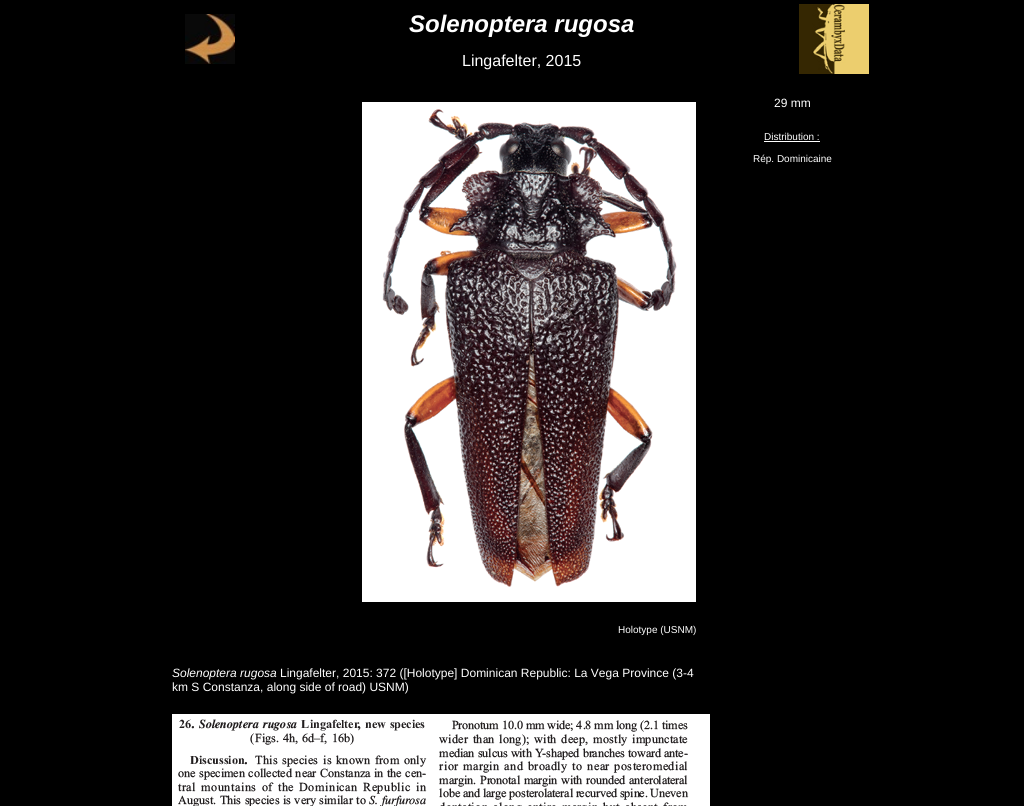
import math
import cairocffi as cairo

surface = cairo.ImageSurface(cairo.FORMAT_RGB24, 1024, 806)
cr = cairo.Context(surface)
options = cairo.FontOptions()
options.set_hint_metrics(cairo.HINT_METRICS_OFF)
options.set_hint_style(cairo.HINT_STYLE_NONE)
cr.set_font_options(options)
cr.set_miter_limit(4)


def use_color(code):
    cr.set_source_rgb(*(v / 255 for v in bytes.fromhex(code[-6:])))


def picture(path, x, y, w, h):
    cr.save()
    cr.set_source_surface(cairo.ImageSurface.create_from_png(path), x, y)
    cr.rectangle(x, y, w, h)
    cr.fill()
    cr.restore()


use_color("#000000")
cr.paint()
picture("img1.png", 185, 14, 50, 50)
cr.select_font_face("Liberation Sans", cairo.FONT_SLANT_ITALIC, cairo.FONT_WEIGHT_BOLD)
cr.set_font_size(24)
use_color("#ffffff")
cr.move_to(409, 32)
cr.show_text("Solenoptera rugosa")
picture("img2.png", 799, 4, 70, 70)
cr.select_font_face("Liberation Sans")
cr.set_font_size(16)
cr.move_to(462, 66)
cr.show_text("Lingafelter, 2015")
cr.set_font_size(12)
cr.move_to(774, 107)
cr.show_text("29 mm")
cr.set_font_size(10)
cr.move_to(764, 140)
cr.show_text("Distribution :")
cr.rectangle(764, 141, 56, 1)
cr.fill()
cr.move_to(753, 162)
cr.show_text("Rép. Dominicaine")
picture("img3.png", 362, 102, 334, 500)
cr.move_to(618, 633)
cr.show_text("Holotype (USNM)")
cr.select_font_face("Liberation Sans", cairo.FONT_SLANT_ITALIC)
cr.set_font_size(12)
cr.move_to(172, 677)
cr.show_text("Solenoptera rugosa")
cr.select_font_face("Liberation Sans")
cr.move_to(280, 677)
cr.show_text("Lingafelter, 2015: 372 ([Holotype] Dominican Republic: La Vega Province (3-4")
cr.move_to(172, 691)
cr.show_text("km S Constanza, along side of road) USNM)")
picture("img4.png", 172, 714, 538, 92)
surface.write_to_png("result.png")
